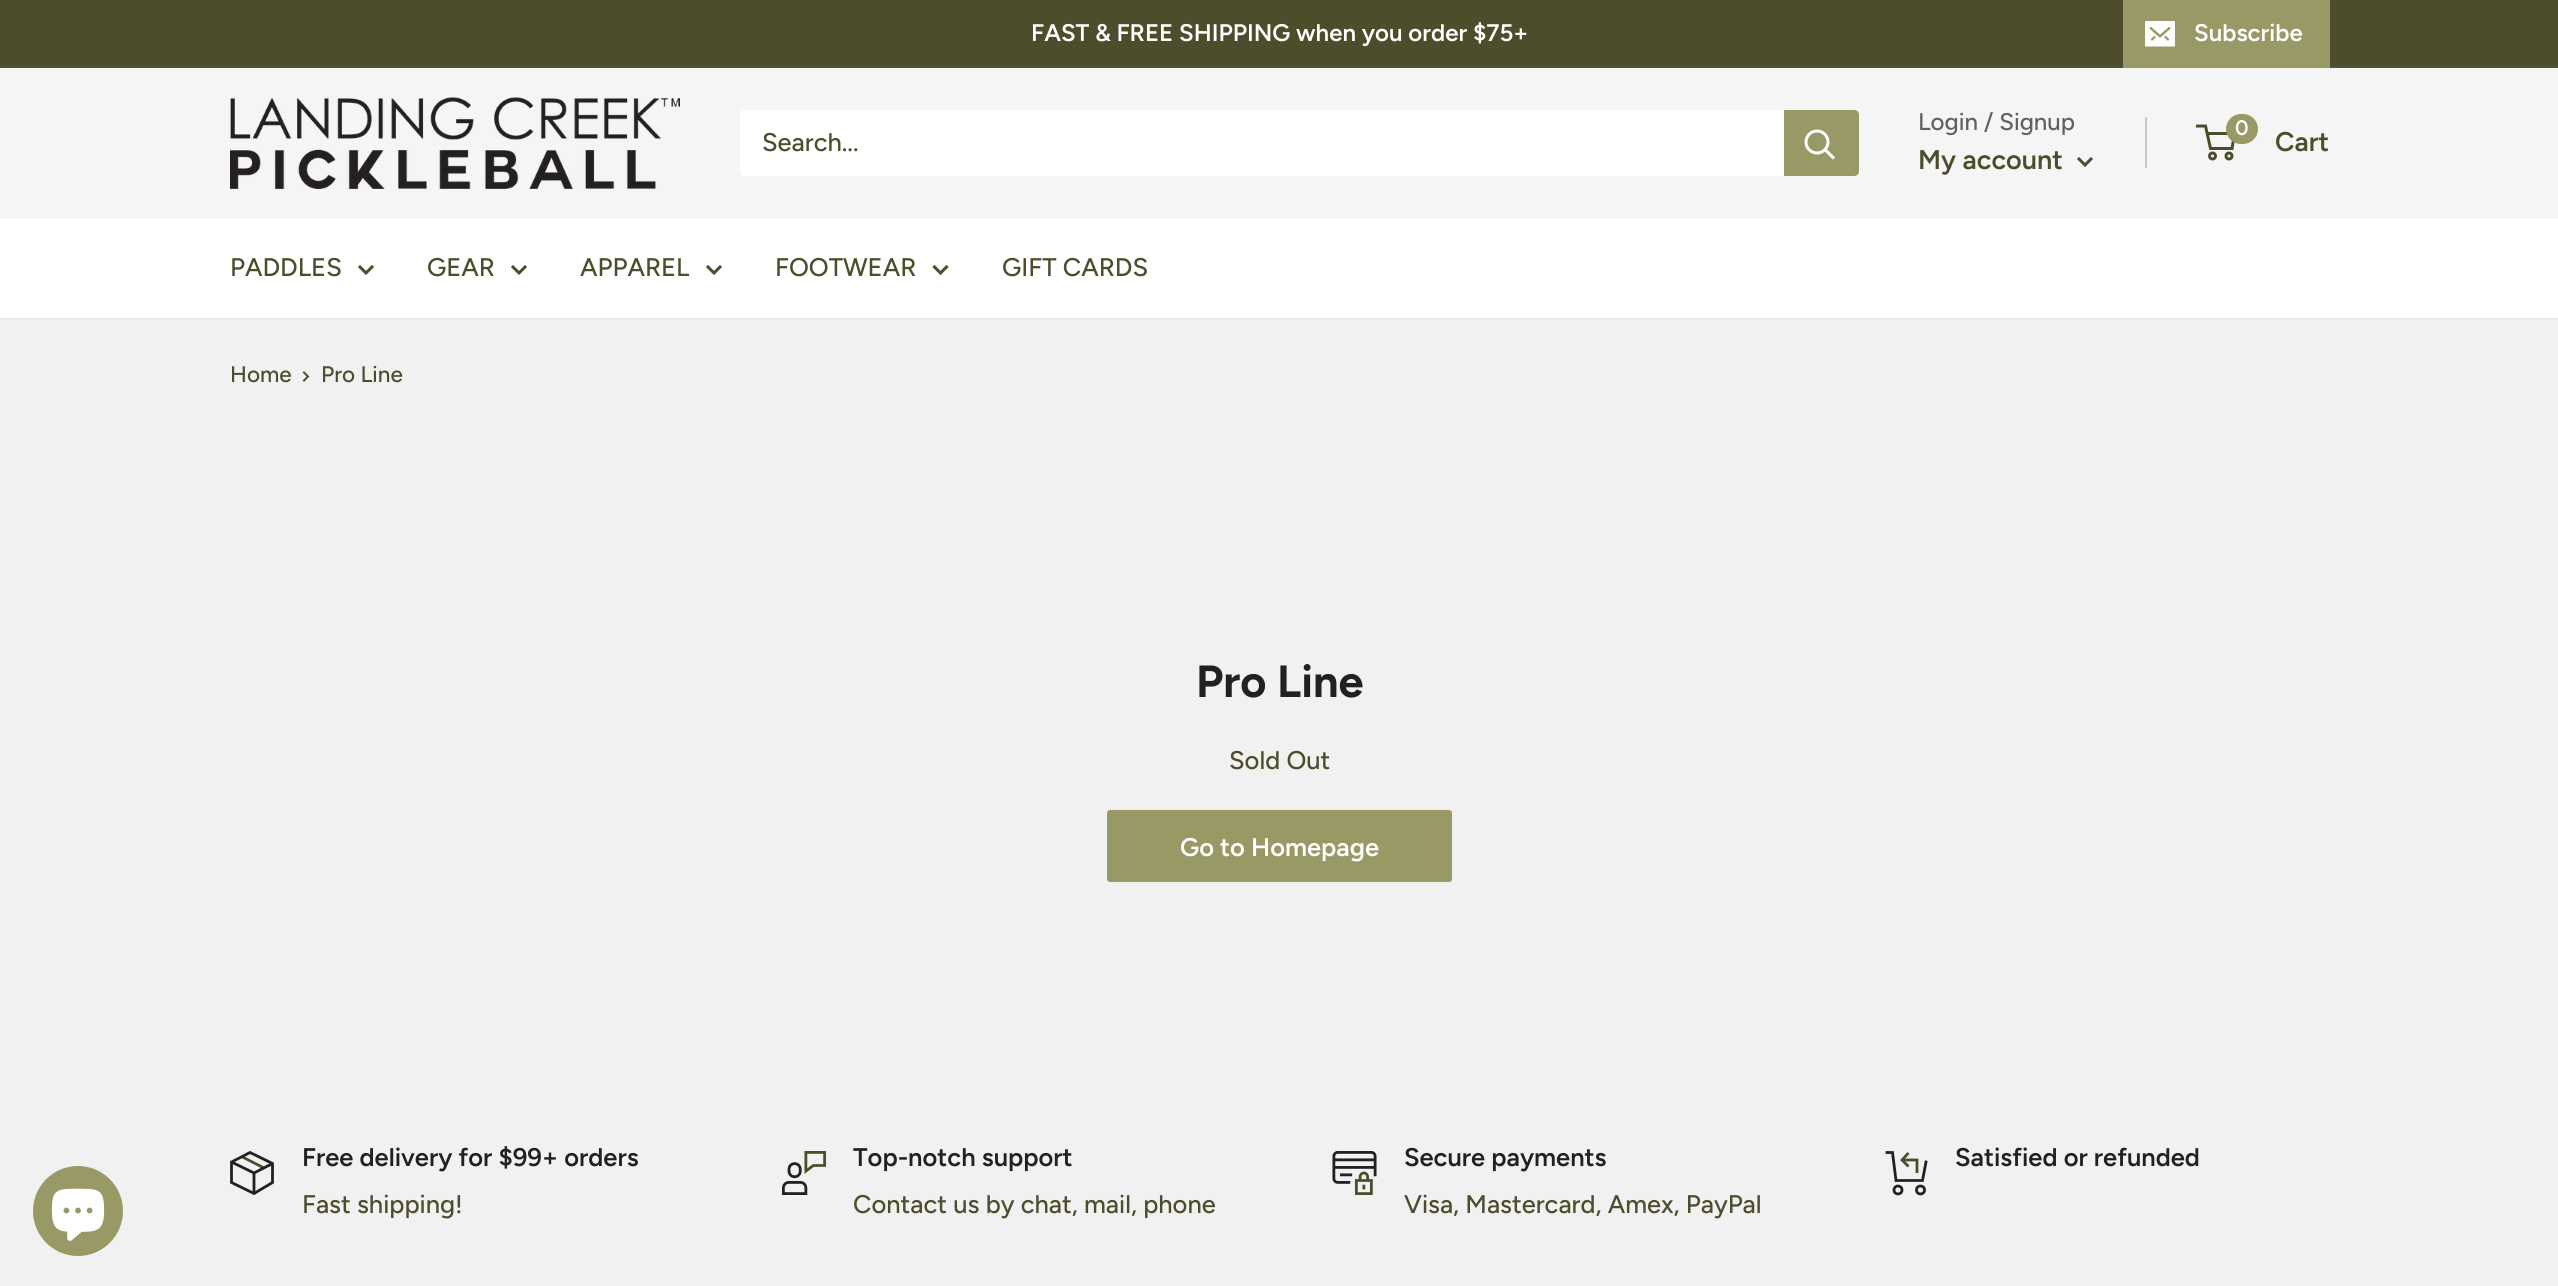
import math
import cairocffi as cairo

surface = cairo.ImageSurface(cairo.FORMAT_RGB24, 2558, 1286)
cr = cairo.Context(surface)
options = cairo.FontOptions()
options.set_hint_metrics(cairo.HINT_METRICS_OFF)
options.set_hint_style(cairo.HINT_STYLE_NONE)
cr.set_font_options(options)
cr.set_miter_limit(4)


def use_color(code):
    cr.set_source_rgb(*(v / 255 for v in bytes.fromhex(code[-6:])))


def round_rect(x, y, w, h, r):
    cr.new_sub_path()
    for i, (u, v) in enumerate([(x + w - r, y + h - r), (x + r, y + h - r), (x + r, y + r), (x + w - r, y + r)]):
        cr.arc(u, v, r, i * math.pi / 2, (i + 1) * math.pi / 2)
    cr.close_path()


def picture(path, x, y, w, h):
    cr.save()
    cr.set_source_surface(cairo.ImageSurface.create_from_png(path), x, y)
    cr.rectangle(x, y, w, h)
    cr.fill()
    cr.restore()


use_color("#f1f1f1")
cr.paint()
use_color("#4d4d2c")
cr.rectangle(0, 0, 2558, 66)
cr.fill()
use_color("#53533c")
cr.rectangle(0, 66, 2558, 2)
cr.fill()
cr.select_font_face("Figtree SemiBold")
cr.set_font_size(24)
use_color("#ffffff")
cr.move_to(1031, 41)
cr.show_text("FAST & FREE SHIPPING when you order $75+")
use_color("#999966")
cr.new_path()
cr.move_to(2123, 66)
cr.line_to(2123, 68)
cr.line_to(2330, 68)
cr.line_to(2330, 2)
cr.line_to(2330, 66)
cr.close_path()
cr.fill()
cr.rectangle(2123, 0, 207, 66)
cr.fill()
picture("img1.png", 2145, 21, 30, 26)
use_color("#ffffff")
cr.move_to(2194, 41)
cr.show_text("Subscribe")
use_color("#f5f5f5")
cr.rectangle(0, 68, 2558, 151)
cr.fill()
picture("img2.png", 230, 97, 450, 92)
use_color("#ffffff")
round_rect(740, 110, 1119, 66, 5)
cr.fill()
cr.select_font_face("Figtree Medium")
cr.set_font_size(25.5)
use_color("#4d4d2c")
cr.move_to(762, 151)
cr.show_text("Search...")
use_color("#999966")
cr.new_path()
cr.move_to(1784, 110)
cr.line_to(1854, 110)
cr.curve_to(1857, 110, 1859, 112, 1859, 115)
cr.line_to(1859, 171)
cr.curve_to(1859, 174, 1857, 176, 1854, 176)
cr.line_to(1784, 176)
cr.close_path()
cr.fill()
cr.new_path()
cr.move_to(1833, 157.5)
cr.line_to(1825.5, 150)
use_color("#ffffff")
cr.set_line_width(3)
cr.set_line_cap(cairo.LINE_CAP_SQUARE)
cr.stroke()
cr.arc(1817, 142, 11, 0, 2 * math.pi)
cr.set_line_cap(cairo.LINE_CAP_BUTT)
cr.stroke()
cr.set_font_size(24)
use_color("#616161")
cr.move_to(1918, 130)
cr.show_text("Login / Signup")
use_color("#c9c9c9")
cr.rectangle(2145, 117, 2, 51)
cr.fill()
cr.select_font_face("Figtree SemiBold")
cr.set_font_size(27)
use_color("#4d4d2c")
cr.move_to(1918, 169)
cr.show_text("My account")
cr.new_path()
cr.move_to(2091, 159)
cr.line_to(2085, 165)
cr.line_to(2079, 159)
cr.set_line_cap(cairo.LINE_CAP_SQUARE)
cr.stroke()
cr.arc(2212.5, 156, 3, 0, 2 * math.pi)
cr.set_line_cap(cairo.LINE_CAP_BUTT)
cr.stroke()
cr.arc(2229, 156, 3, 0, 2 * math.pi)
cr.stroke()
cr.new_path()
cr.move_to(2207, 133.5)
cr.line_to(2234.5, 133.5)
cr.line_to(2232, 148.5)
cr.line_to(2210.5, 148.5)
cr.line_to(2205.5, 126)
cr.line_to(2196, 126)
cr.stroke()
use_color("#999966")
round_rect(2226, 114, 32, 30, 15)
cr.fill()
cr.set_font_size(21)
use_color("#ffffff")
cr.move_to(2235, 135)
cr.show_text("0")
cr.set_font_size(27)
use_color("#4d4d2c")
cr.move_to(2275, 151)
cr.show_text("Cart")
use_color("#ffffff")
cr.rectangle(0, 219, 2558, 99)
cr.fill()
use_color("#e8e8e8")
cr.rectangle(0, 318, 2558, 2)
cr.fill()
cr.select_font_face("Figtree Medium")
cr.set_font_size(25.5)
use_color("#4d4d2c")
cr.move_to(230, 276)
cr.show_text("PADDLES")
cr.new_path()
cr.move_to(372, 267)
cr.line_to(366, 273)
cr.line_to(360, 267)
cr.set_line_cap(cairo.LINE_CAP_SQUARE)
cr.stroke()
cr.move_to(427, 276)
cr.show_text("GEAR")
cr.new_path()
cr.move_to(525, 267)
cr.line_to(519, 273)
cr.line_to(513, 267)
cr.stroke()
cr.move_to(580, 276)
cr.show_text("APPAREL")
cr.new_path()
cr.move_to(720, 267)
cr.line_to(714, 273)
cr.line_to(708, 267)
cr.stroke()
cr.move_to(775, 276)
cr.show_text("FOOTWEAR")
cr.new_path()
cr.move_to(946.5, 267)
cr.line_to(940.5, 273)
cr.line_to(934.5, 267)
cr.stroke()
cr.move_to(1002, 276)
cr.show_text("GIFT CARDS")
cr.set_font_size(22.5)
cr.move_to(230, 382)
cr.show_text("Home")
cr.new_path()
cr.move_to(304, 372.5)
cr.line_to(308, 376.5)
cr.line_to(304, 380.5)
cr.set_line_width(2)
cr.stroke()
cr.move_to(321, 382)
cr.show_text("Pro Line")
cr.select_font_face("Figtree", cairo.FONT_SLANT_NORMAL, cairo.FONT_WEIGHT_BOLD)
cr.set_font_size(45)
use_color("#222021")
cr.move_to(1196, 697)
cr.show_text("Pro Line")
cr.select_font_face("Figtree Medium")
cr.set_font_size(25.5)
use_color("#4d4d2c")
cr.move_to(1229, 769)
cr.show_text("Sold Out")
use_color("#999966")
round_rect(1107, 810, 345, 72, 3)
cr.fill()
cr.select_font_face("Figtree SemiBold")
use_color("#ffffff")
cr.move_to(1180, 856)
cr.show_text("Go to Homepage")
use_color("#999966")
cr.new_path()
cr.arc(78, 1211, 45, 0, 2 * math.pi)
cr.fill()
picture("img3.png", 51, 1188, 54, 53)
cr.new_path()
cr.move_to(241.5, 1156.5)
cr.line_to(264, 1168)
use_color("#4d4d2c")
cr.set_line_width(2.8)
cr.set_line_cap(cairo.LINE_CAP_BUTT)
cr.stroke()
cr.new_path()
cr.move_to(272.5, 1163.5)
cr.line_to(254, 1173)
cr.line_to(231.5, 1162)
cr.move_to(254, 1173)
cr.line_to(254, 1193.5)
use_color("#222021")
cr.stroke()
cr.new_path()
cr.move_to(272.5, 1163.5)
cr.line_to(272.5, 1182.5)
cr.line_to(254, 1193.5)
cr.line_to(231.5, 1182.5)
cr.line_to(231.5, 1162)
cr.line_to(250, 1152.5)
cr.close_path()
cr.set_line_cap(cairo.LINE_CAP_SQUARE)
cr.stroke()
cr.move_to(302, 1166)
cr.show_text("Free delivery for $99+ orders")
cr.select_font_face("Figtree Medium")
use_color("#4d4d2c")
cr.move_to(302, 1213)
cr.show_text("Fast shipping!")
picture("img4.png", 782, 1151, 45, 44)
cr.select_font_face("Figtree SemiBold")
use_color("#222021")
cr.move_to(853, 1166)
cr.show_text("Top-notch support")
cr.select_font_face("Figtree Medium")
use_color("#4d4d2c")
cr.move_to(853, 1213)
cr.show_text("Contact us by chat, mail, phone")
picture("img5.png", 1332, 1151, 45, 44)
cr.select_font_face("Figtree SemiBold")
use_color("#222021")
cr.move_to(1404, 1166)
cr.show_text("Secure payments")
cr.select_font_face("Figtree Medium")
use_color("#4d4d2c")
cr.move_to(1404, 1213)
cr.show_text("Visa, Mastercard, Amex, PayPal")
cr.new_path()
cr.move_to(1902, 1160)
cr.line_to(1917, 1160)
cr.line_to(1917, 1173)
cr.set_line_cap(cairo.LINE_CAP_BUTT)
cr.stroke()
cr.new_path()
cr.move_to(1907.5, 1165.5)
cr.line_to(1902, 1160)
cr.line_to(1907.5, 1154)
cr.set_line_cap(cairo.LINE_CAP_SQUARE)
cr.stroke()
cr.new_path()
cr.move_to(1926, 1162)
cr.line_to(1922.5, 1180.5)
cr.line_to(1896, 1180.5)
cr.line_to(1892.5, 1152.5)
cr.line_to(1887, 1152.5)
use_color("#222021")
cr.stroke()
cr.arc(1898, 1190, 4, 0, 2 * math.pi)
cr.set_line_cap(cairo.LINE_CAP_BUTT)
cr.stroke()
cr.arc(1920.5, 1190, 4, 0, 2 * math.pi)
cr.stroke()
cr.select_font_face("Figtree SemiBold")
cr.move_to(1955, 1166)
cr.show_text("Satisfied or refunded")
surface.write_to_png("result.png")
